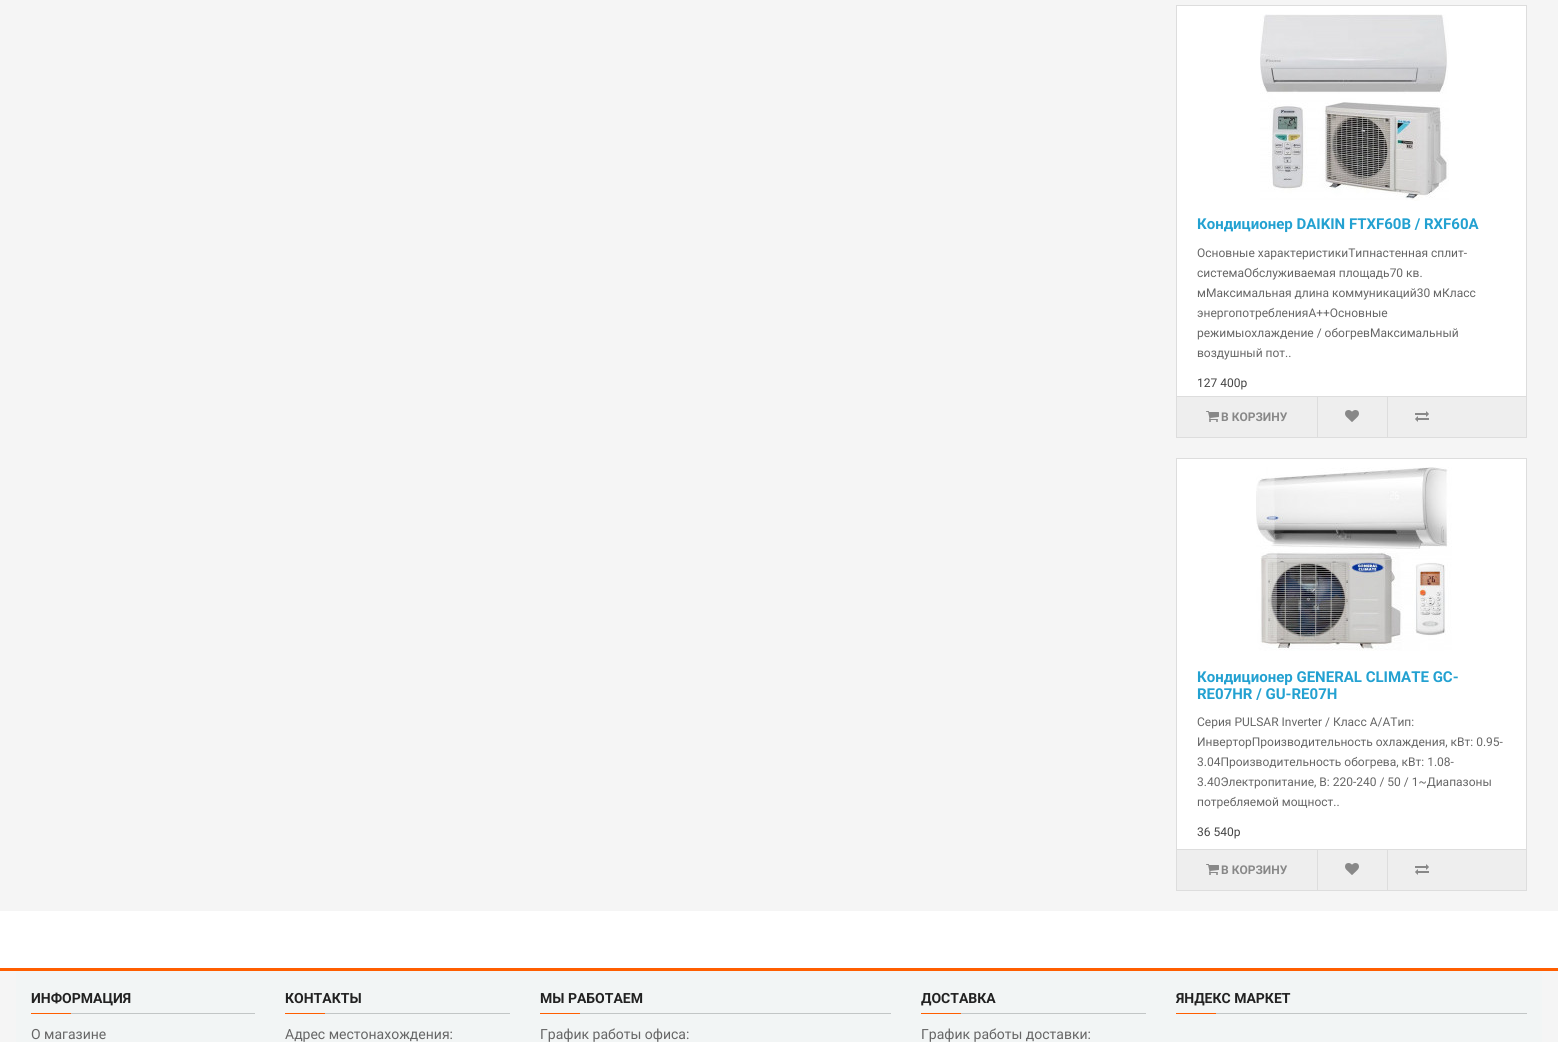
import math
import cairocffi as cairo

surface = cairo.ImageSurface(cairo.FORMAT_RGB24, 1558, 1042)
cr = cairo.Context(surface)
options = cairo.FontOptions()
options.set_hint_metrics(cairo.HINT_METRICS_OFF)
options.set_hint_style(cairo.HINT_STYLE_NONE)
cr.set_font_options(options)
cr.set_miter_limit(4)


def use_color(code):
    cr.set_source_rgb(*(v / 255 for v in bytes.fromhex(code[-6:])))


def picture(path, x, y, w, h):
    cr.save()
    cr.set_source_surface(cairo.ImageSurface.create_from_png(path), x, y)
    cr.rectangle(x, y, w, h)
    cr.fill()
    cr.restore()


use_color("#f5f5f5")
cr.paint()
use_color("#ffffff")
cr.rectangle(1177, 6, 349, 390)
cr.fill()
cr.rectangle(1176.5, 5.5, 350, 432)
use_color("#dddddd")
cr.set_line_width(1)
cr.stroke()
picture("img1.png", 1260, 14, 189, 187)
cr.select_font_face("Roboto", cairo.FONT_SLANT_NORMAL, cairo.FONT_WEIGHT_BOLD)
cr.set_font_size(15)
use_color("#23a1d1")
cr.move_to(1197, 229)
cr.show_text("Кондиционер DAIKIN FTXF60B / RXF60A")
cr.select_font_face("Roboto")
cr.set_font_size(12)
use_color("#666666")
cr.move_to(1197, 257)
cr.show_text("Основные характеристикиТипнастенная сплит-")
cr.move_to(1197, 277)
cr.show_text("системаОбслуживаемая площадь70 кв.")
cr.move_to(1197, 297)
cr.show_text("мМаксимальная длина коммуникаций30 мКласс")
cr.move_to(1197, 317)
cr.show_text("энергопотребленияA++Основные")
cr.move_to(1197, 337)
cr.show_text("режимыохлаждение / обогревМаксимальный")
cr.move_to(1197, 357)
cr.show_text("воздушный пот..")
use_color("#444444")
cr.move_to(1197, 387)
cr.show_text("127 400р")
use_color("#eeeeee")
cr.rectangle(1177, 397, 349, 40)
cr.fill()
use_color("#dddddd")
cr.rectangle(1177, 396, 349, 1)
cr.fill()
picture("img2.png", 1206, 411, 13, 11)
cr.select_font_face("Roboto", cairo.FONT_SLANT_NORMAL, cairo.FONT_WEIGHT_BOLD)
use_color("#888888")
cr.move_to(1221, 421)
cr.show_text("В КОРЗИНУ")
use_color("#dddddd")
cr.rectangle(1317, 397, 1, 40)
cr.fill()
picture("img3.png", 1345, 410, 14, 12)
cr.rectangle(1387, 397, 1, 40)
cr.fill()
picture("img4.png", 1415, 411, 14, 11)
use_color("#ffffff")
cr.rectangle(1177, 459, 349, 390)
cr.fill()
cr.rectangle(1176.5, 458.5, 350, 432)
use_color("#dddddd")
cr.stroke()
picture("img5.png", 1256, 467, 196, 184)
cr.set_font_size(15)
use_color("#23a1d1")
cr.move_to(1197, 682)
cr.show_text("Кондиционер GENERAL CLIMATE GC-")
cr.move_to(1197, 699)
cr.show_text("RE07HR / GU-RE07H")
cr.select_font_face("Roboto")
cr.set_font_size(12)
use_color("#666666")
cr.move_to(1197, 726)
cr.show_text("Серия PULSAR Inverter / Класс А/АТип:")
cr.move_to(1197, 746)
cr.show_text("ИнверторПроизводительность охлаждения, кВт: 0.95-")
cr.move_to(1197, 766)
cr.show_text("3.04Производительность обогрева, кВт: 1.08-")
cr.move_to(1197, 786)
cr.show_text("3.40Электропитание, В: 220-240 / 50 / 1~Диапазоны")
cr.move_to(1197, 806)
cr.show_text("потребляемой мощност..")
use_color("#444444")
cr.move_to(1197, 836)
cr.show_text("36 540р")
use_color("#eeeeee")
cr.rectangle(1177, 850, 349, 40)
cr.fill()
use_color("#dddddd")
cr.rectangle(1177, 849, 349, 1)
cr.fill()
picture("img2.png", 1206, 864, 13, 11)
cr.select_font_face("Roboto", cairo.FONT_SLANT_NORMAL, cairo.FONT_WEIGHT_BOLD)
use_color("#888888")
cr.move_to(1221, 874)
cr.show_text("В КОРЗИНУ")
use_color("#dddddd")
cr.rectangle(1317, 850, 1, 40)
cr.fill()
picture("img3.png", 1345, 863, 14, 12)
cr.rectangle(1387, 850, 1, 40)
cr.fill()
picture("img4.png", 1415, 864, 14, 11)
use_color("#ffffff")
cr.rectangle(0, 911, 1558, 57)
cr.fill()
use_color("#ff5e00")
cr.rectangle(0, 968, 1558, 3)
cr.fill()
use_color("#f2f5f5")
cr.rectangle(16, 971, 1526, 71)
cr.fill()
use_color("#c2c6c6")
cr.rectangle(71, 1013, 184, 1)
cr.fill()
cr.set_font_size(14)
use_color("#222222")
cr.move_to(31, 1003)
cr.show_text("ИНФОРМАЦИЯ")
use_color("#ff5e00")
cr.rectangle(31, 1013, 40, 1)
cr.fill()
cr.select_font_face("Roboto")
use_color("#666666")
cr.move_to(31, 1039)
cr.show_text("О магазине")
use_color("#c2c6c6")
cr.rectangle(325, 1013, 185, 1)
cr.fill()
cr.select_font_face("Roboto", cairo.FONT_SLANT_NORMAL, cairo.FONT_WEIGHT_BOLD)
use_color("#222222")
cr.move_to(285, 1003)
cr.show_text("КОНТАКТЫ")
use_color("#ff5e00")
cr.rectangle(285, 1013, 40, 1)
cr.fill()
cr.select_font_face("Roboto")
use_color("#666666")
cr.move_to(285, 1039)
cr.show_text("Адрес местонахождения:")
use_color("#c2c6c6")
cr.rectangle(580, 1013, 311, 1)
cr.fill()
cr.select_font_face("Roboto", cairo.FONT_SLANT_NORMAL, cairo.FONT_WEIGHT_BOLD)
use_color("#222222")
cr.move_to(540, 1003)
cr.show_text("МЫ РАБОТАЕМ")
use_color("#ff5e00")
cr.rectangle(540, 1013, 40, 1)
cr.fill()
cr.select_font_face("Roboto")
use_color("#666666")
cr.move_to(540, 1039)
cr.show_text("График работы офиса:")
use_color("#c2c6c6")
cr.rectangle(961, 1013, 185, 1)
cr.fill()
cr.select_font_face("Roboto", cairo.FONT_SLANT_NORMAL, cairo.FONT_WEIGHT_BOLD)
use_color("#222222")
cr.move_to(921, 1003)
cr.show_text("ДОСТАВКА")
use_color("#ff5e00")
cr.rectangle(921, 1013, 40, 1)
cr.fill()
cr.select_font_face("Roboto")
use_color("#666666")
cr.move_to(921, 1039)
cr.show_text("График работы доставки:")
use_color("#c2c6c6")
cr.rectangle(1216, 1013, 311, 1)
cr.fill()
cr.select_font_face("Roboto", cairo.FONT_SLANT_NORMAL, cairo.FONT_WEIGHT_BOLD)
use_color("#222222")
cr.move_to(1176, 1003)
cr.show_text("ЯНДЕКС МАРКЕТ")
use_color("#ff5e00")
cr.rectangle(1176, 1013, 40, 1)
cr.fill()
surface.write_to_png("result.png")
